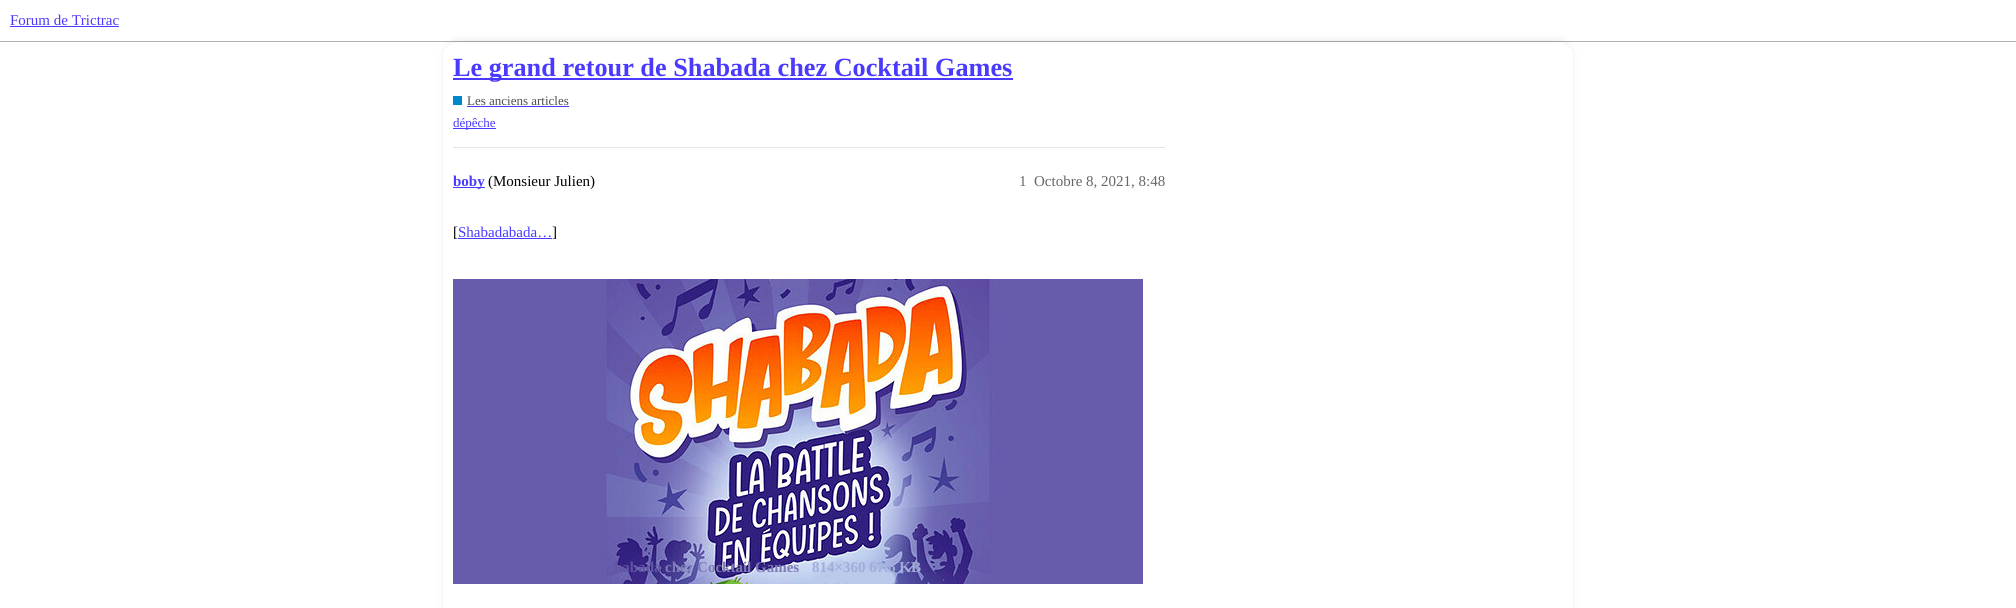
import math
import cairocffi as cairo

surface = cairo.ImageSurface(cairo.FORMAT_RGB24, 2016, 608)
cr = cairo.Context(surface)
options = cairo.FontOptions()
options.set_hint_metrics(cairo.HINT_METRICS_OFF)
options.set_hint_style(cairo.HINT_STYLE_NONE)
cr.set_font_options(options)
cr.set_miter_limit(4)


def use_color(code):
    cr.set_source_rgb(*(v / 255 for v in bytes.fromhex(code[-6:])))


def round_rect(x, y, w, h, r):
    cr.new_sub_path()
    for i, (u, v) in enumerate([(x + w - r, y + h - r), (x + r, y + h - r), (x + r, y + r), (x + w - r, y + r)]):
        cr.arc(u, v, r, i * math.pi / 2, (i + 1) * math.pi / 2)
    cr.close_path()


def shadow(x, y, w, h, r, blur, alpha):
    cr.push_group_with_content(cairo.CONTENT_ALPHA)
    cr.set_operator(cairo.OPERATOR_SOURCE)
    for i in range(15, -16, -2):
        e = blur * i / 6
        if min(w, h) + 2 * e > 0:
            cr.set_source_rgba(0, 0, 0, alpha * math.erfc((i - 1) / 8.5) / 2)
            round_rect(x - e, y - e, w + 2 * e, h + 2 * e, max(0, min(r + e + blur * .6, min(w, h) / 2 + e)))
            cr.fill()
    cr.mask(cr.pop_group())


def picture(path, x, y, w, h):
    cr.save()
    cr.set_source_surface(cairo.ImageSurface.create_from_png(path), x, y)
    cr.rectangle(x, y, w, h)
    cr.fill()
    cr.restore()


use_color("#ffffff")
cr.paint()
use_color("#afafaf")
cr.rectangle(0, 41, 2016, 1)
cr.fill()
cr.select_font_face("Liberation Serif")
cr.set_font_size(15)
use_color("#4a3aff")
cr.move_to(10, 25)
cr.show_text("Forum de Trictrac")
cr.rectangle(10, 26, 109, 1)
cr.fill()
use_color("#000000")
shadow(448, 44, 1120, 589, 10, 5, 0.2)
use_color("#ffffff")
round_rect(443, 42, 1130, 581, 15)
cr.fill()
use_color("#4a3aff")
cr.rectangle(453, 78, 560, 2)
cr.fill()
cr.select_font_face("Liberation Serif", cairo.FONT_SLANT_NORMAL, cairo.FONT_WEIGHT_BOLD)
cr.set_font_size(26.25)
cr.move_to(453, 76)
cr.show_text("Le grand retour de Shabada chez Cocktail Games")
use_color("#0088cc")
cr.rectangle(453, 96, 9, 9)
cr.fill()
cr.select_font_face("Liberation Serif")
cr.set_font_size(13)
use_color("#4d4d4d")
cr.move_to(467, 105)
cr.show_text("Les anciens articles")
use_color("#4a3aff")
cr.rectangle(467, 106, 102, 1)
cr.fill()
cr.rectangle(453, 128, 43, 1)
cr.fill()
cr.move_to(453, 127)
cr.show_text("dépêche")
use_color("#e6e6e6")
cr.rectangle(453, 147, 712, 1)
cr.fill()
use_color("#4a3aff")
cr.rectangle(453, 187, 32, 1)
cr.fill()
cr.select_font_face("Liberation Serif", cairo.FONT_SLANT_NORMAL, cairo.FONT_WEIGHT_BOLD)
cr.set_font_size(15)
cr.move_to(453, 186)
cr.show_text("boby")
cr.select_font_face("Liberation Serif")
use_color("#000000")
cr.move_to(488, 186)
cr.show_text("(Monsieur Julien)")
use_color("#666666")
cr.move_to(1019, 186)
cr.show_text("1")
cr.move_to(1034, 186)
cr.show_text("Octobre 8, 2021, 8:48")
use_color("#000000")
cr.move_to(453, 237)
cr.show_text("[")
use_color("#4a3aff")
cr.move_to(458, 237)
cr.show_text("Shabadabada…")
cr.rectangle(458, 238, 94, 1)
cr.fill()
use_color("#000000")
cr.move_to(552, 237)
cr.show_text("]")
picture("img1.png", 453, 279, 690, 305)
cr.select_font_face("Liberation Serif", cairo.FONT_SLANT_NORMAL, cairo.FONT_WEIGHT_BOLD)
use_color("#6054a5")
cr.move_to(614, 572)
cr.show_text("habada")
use_color("#7d7ab6")
cr.move_to(665, 572)
cr.show_text("chez Cocktail Games")
use_color("#a1acd9")
cr.move_to(812, 572)
cr.show_text("814×360 67.6 KB")
surface.write_to_png("result.png")
